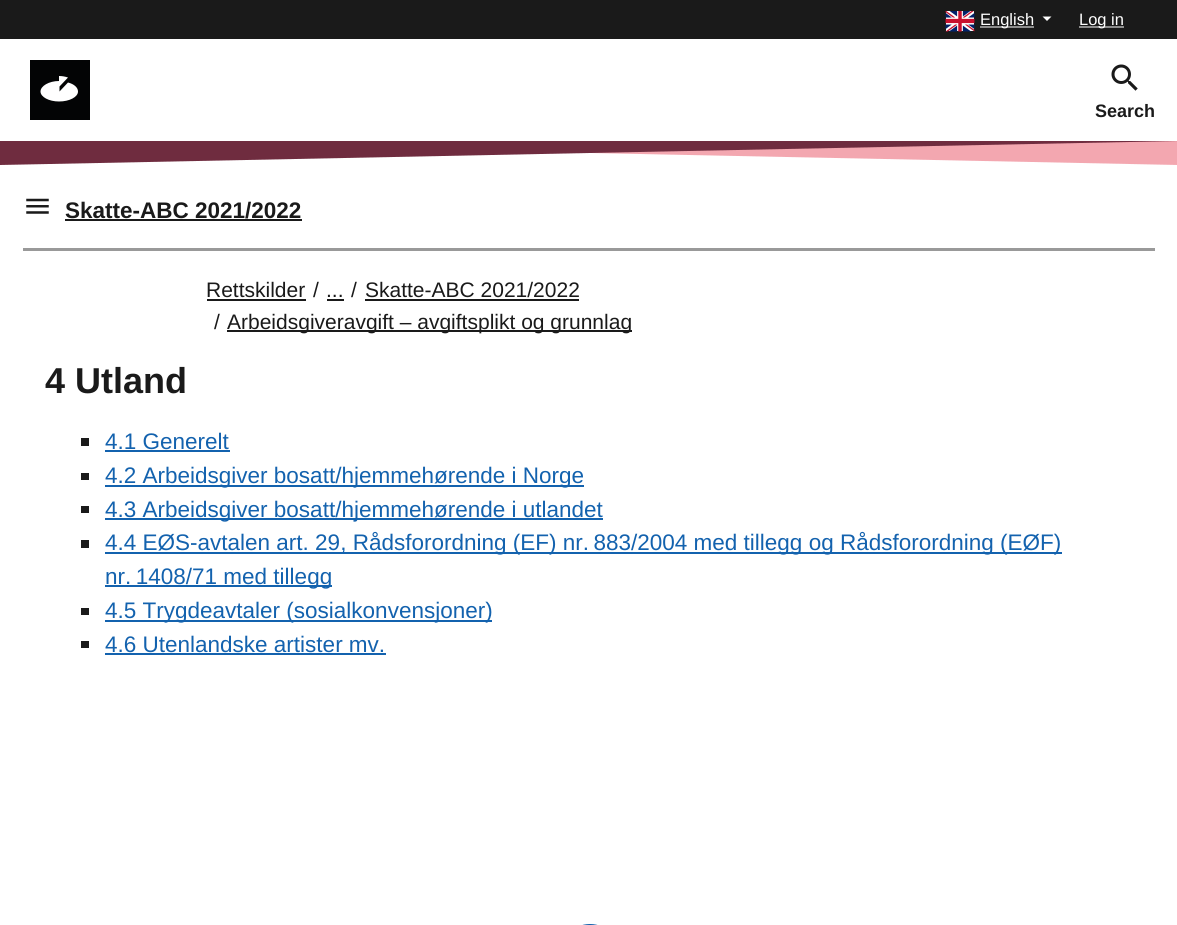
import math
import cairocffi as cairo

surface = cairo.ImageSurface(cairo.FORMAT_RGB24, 1177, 925)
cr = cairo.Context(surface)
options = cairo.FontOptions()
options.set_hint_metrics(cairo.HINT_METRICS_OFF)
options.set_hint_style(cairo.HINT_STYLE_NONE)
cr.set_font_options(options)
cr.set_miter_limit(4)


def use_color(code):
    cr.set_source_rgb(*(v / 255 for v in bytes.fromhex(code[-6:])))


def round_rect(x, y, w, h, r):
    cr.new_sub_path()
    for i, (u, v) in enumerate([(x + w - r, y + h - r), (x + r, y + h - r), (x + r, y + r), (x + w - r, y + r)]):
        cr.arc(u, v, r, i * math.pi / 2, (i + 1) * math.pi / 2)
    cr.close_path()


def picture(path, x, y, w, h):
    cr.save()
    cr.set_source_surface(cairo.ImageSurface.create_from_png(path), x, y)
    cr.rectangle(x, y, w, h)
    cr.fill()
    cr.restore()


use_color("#ffffff")
cr.paint()
use_color("#1a1a1a")
cr.rectangle(0, 0, 1177, 39)
cr.fill()
picture("img1.png", 945, 11, 30, 21)
use_color("#8d8d8d")
cr.rectangle(980, 26, 54, 2)
cr.fill()
cr.select_font_face("Liberation Sans")
cr.set_font_size(16.5)
use_color("#ffffff")
cr.move_to(980, 25)
cr.show_text("English")
cr.new_path()
cr.move_to(1042.5, 16.5)
cr.line_to(1051.5, 16.5)
cr.line_to(1047, 21)
cr.close_path()
cr.fill()
use_color("#8d8d8d")
cr.rectangle(1079, 26, 45, 2)
cr.fill()
use_color("#ffffff")
cr.move_to(1079, 25)
cr.show_text("Log in")
use_color("#030405")
cr.rectangle(30, 60, 60, 60)
cr.fill()
use_color("#ffffff")
cr.new_path()
cr.move_to(40.5, 91.5)
cr.curve_to(40.5, 97, 49, 101.5, 59, 101.5)
cr.curve_to(69.5, 101.5, 78, 97, 78, 91.5)
cr.curve_to(78, 87.5, 74, 84, 68, 82.5)
cr.line_to(59.5, 91.5)
cr.line_to(59.5, 86.5)
cr.line_to(68, 77.5)
cr.curve_to(65, 76.5, 62, 76, 59, 76)
cr.line_to(59, 81)
cr.curve_to(49, 81, 40.5, 86, 40.5, 91.5)
cr.close_path()
cr.fill()
picture("img2.png", 1111, 64, 27, 27)
cr.select_font_face("Liberation Sans", cairo.FONT_SLANT_NORMAL, cairo.FONT_WEIGHT_BOLD)
cr.set_font_size(18)
use_color("#1a1a1a")
cr.move_to(1095, 117)
cr.show_text("Search")
use_color("#f3a7b0")
cr.new_path()
cr.move_to(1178, 141)
cr.line_to(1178, 165)
cr.line_to(0, 141)
cr.close_path()
cr.fill()
use_color("#6f2c3f")
cr.new_path()
cr.move_to(0, 141)
cr.line_to(0, 165)
cr.line_to(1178, 141)
cr.close_path()
cr.fill()
use_color("#999999")
cr.rectangle(23, 248, 1132, 3)
cr.fill()
picture("img3.png", 26, 198, 23, 16)
cr.set_font_size(22.5)
use_color("#1a1a1a")
cr.move_to(65, 218)
cr.show_text("Skatte-ABC 2021/2022")
cr.rectangle(65, 219, 237, 2)
cr.fill()
cr.select_font_face("Liberation Sans")
cr.set_font_size(21)
cr.move_to(206, 297)
cr.show_text("Rettskilder")
cr.rectangle(207, 299, 99, 2)
cr.fill()
cr.move_to(313, 297)
cr.show_text("/")
cr.move_to(326, 297)
cr.show_text("...")
cr.rectangle(327, 299, 17, 2)
cr.fill()
cr.move_to(351, 297)
cr.show_text("/")
cr.move_to(365, 297)
cr.show_text("Skatte-ABC 2021/2022")
cr.rectangle(365, 299, 214, 2)
cr.fill()
cr.move_to(214, 329)
cr.show_text("/")
cr.rectangle(227, 330, 405, 2)
cr.fill()
cr.move_to(227, 329)
cr.show_text("Arbeidsgiveravgift – avgiftsplikt og grunnlag")
cr.select_font_face("Liberation Sans", cairo.FONT_SLANT_NORMAL, cairo.FONT_WEIGHT_BOLD)
cr.set_font_size(36)
cr.move_to(45, 393)
cr.show_text("4 Utland")
cr.rectangle(81, 438, 8, 8)
cr.fill()
cr.select_font_face("Liberation Sans")
cr.set_font_size(22.5)
use_color("#1362ae")
cr.move_to(105, 449)
cr.show_text("4.1 Generelt")
cr.rectangle(105, 450, 125, 2)
cr.fill()
use_color("#1a1a1a")
cr.rectangle(81, 473, 8, 7)
cr.fill()
use_color("#1362ae")
cr.rectangle(105, 485, 479, 2)
cr.fill()
cr.move_to(105, 483)
cr.show_text("4.2 Arbeidsgiver bosatt/hjemmehørende i Norge")
use_color("#1a1a1a")
cr.rectangle(81, 506, 8, 7)
cr.fill()
use_color("#1362ae")
cr.rectangle(105, 518, 498, 2)
cr.fill()
cr.move_to(105, 517)
cr.show_text("4.3 Arbeidsgiver bosatt/hjemmehørende i utlandet")
use_color("#1a1a1a")
cr.rectangle(81, 540, 8, 8)
cr.fill()
use_color("#1362ae")
cr.rectangle(105, 552, 957, 2)
cr.fill()
cr.move_to(105, 550)
cr.show_text("4.4 EØS-avtalen art. 29, Rådsforordning (EF) nr. 883/2004 med tillegg og Rådsforordning (EØF)")
cr.rectangle(105, 585, 227, 2)
cr.fill()
cr.move_to(105, 584)
cr.show_text("nr. 1408/71 med tillegg")
use_color("#1a1a1a")
cr.rectangle(81, 608, 8, 7)
cr.fill()
use_color("#1362ae")
cr.rectangle(105, 620, 387, 2)
cr.fill()
cr.move_to(105, 618)
cr.show_text("4.5 Trygdeavtaler (sosialkonvensjoner)")
use_color("#1a1a1a")
cr.rectangle(81, 641, 8, 7)
cr.fill()
use_color("#1362ae")
cr.move_to(105, 652)
cr.show_text("4.6 Utenlandske artister mv.")
cr.rectangle(105, 653, 281, 2)
cr.fill()
round_rect(561.5, 925.5, 57, 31, 28.5)
cr.set_line_width(3)
cr.stroke()
surface.write_to_png("result.png")
